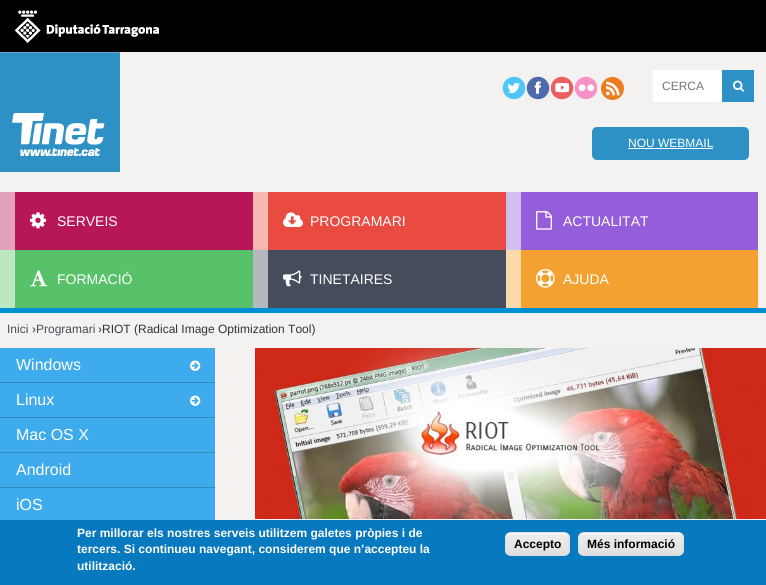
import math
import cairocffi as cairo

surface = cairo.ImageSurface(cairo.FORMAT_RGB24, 766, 585)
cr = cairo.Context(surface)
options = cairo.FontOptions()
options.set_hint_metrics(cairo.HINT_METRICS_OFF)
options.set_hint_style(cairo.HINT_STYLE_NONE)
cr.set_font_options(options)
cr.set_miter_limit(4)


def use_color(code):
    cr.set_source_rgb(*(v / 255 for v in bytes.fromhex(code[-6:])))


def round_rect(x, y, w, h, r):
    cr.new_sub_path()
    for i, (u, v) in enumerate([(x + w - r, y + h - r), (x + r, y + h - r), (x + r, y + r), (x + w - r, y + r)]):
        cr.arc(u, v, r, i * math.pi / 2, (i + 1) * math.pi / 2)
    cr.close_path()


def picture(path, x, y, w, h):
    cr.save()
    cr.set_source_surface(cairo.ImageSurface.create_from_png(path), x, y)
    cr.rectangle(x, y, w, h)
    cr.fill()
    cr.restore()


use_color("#f4f2f0")
cr.paint()
use_color("#000000")
cr.rectangle(0, 0, 766, 52)
cr.fill()
picture("img1.png", 14, 10, 145, 33)
picture("img2.png", 0, 52, 120, 120)
picture("img3.png", 502, 76, 24, 24)
picture("img4.png", 526, 76, 24, 24)
picture("img5.png", 550, 76, 24, 24)
picture("img6.png", 574, 76, 24, 24)
picture("img7.png", 601, 77, 23, 23)
use_color("#ffffff")
cr.rectangle(653, 70, 69, 32)
cr.fill()
cr.select_font_face("Liberation Sans")
cr.set_font_size(12)
use_color("#757575")
cr.move_to(662, 90)
cr.show_text("CERCA")
use_color("#2d91c5")
cr.rectangle(722, 70, 32, 32)
cr.fill()
picture("img8.png", 733, 80, 12, 12)
round_rect(592, 127, 157, 33, 5)
cr.fill()
use_color("#ffffff")
cr.move_to(628, 147)
cr.show_text("NOU WEBMAIL")
cr.rectangle(628, 148, 85, 1)
cr.fill()
use_color("#008fd4")
cr.rectangle(0, 308, 766, 5)
cr.fill()
use_color("#b81757")
cr.rectangle(15, 192, 238, 58)
cr.fill()
use_color("#e3a2bc")
cr.rectangle(0, 192, 15, 58)
cr.fill()
picture("img9.png", 30, 212, 16, 17)
cr.set_font_size(14)
use_color("#ffffff")
cr.move_to(57, 226)
cr.show_text("SERVEIS")
use_color("#ea4b41")
cr.rectangle(268, 192, 238, 58)
cr.fill()
use_color("#f7b7b3")
cr.rectangle(253, 192, 15, 58)
cr.fill()
picture("img10.png", 283, 212, 20, 15)
use_color("#ffffff")
cr.move_to(310, 226)
cr.show_text("PROGRAMARI")
use_color("#945dda")
cr.rectangle(521, 192, 237, 58)
cr.fill()
use_color("#d4bef0")
cr.rectangle(506, 192, 15, 58)
cr.fill()
picture("img11.png", 536, 211, 16, 19)
use_color("#ffffff")
cr.move_to(563, 226)
cr.show_text("ACTUALITAT")
use_color("#57c269")
cr.rectangle(15, 250, 238, 58)
cr.fill()
use_color("#bce7c3")
cr.rectangle(0, 250, 15, 58)
cr.fill()
picture("img12.png", 30, 270, 18, 17)
use_color("#ffffff")
cr.move_to(57, 284)
cr.show_text("FORMACIÓ")
use_color("#454d5c")
cr.rectangle(268, 250, 238, 58)
cr.fill()
use_color("#b5b8be")
cr.rectangle(253, 250, 15, 58)
cr.fill()
picture("img13.png", 283, 270, 19, 17)
use_color("#ffffff")
cr.move_to(310, 284)
cr.show_text("TINETAIRES")
use_color("#f3a231")
cr.rectangle(521, 250, 237, 58)
cr.fill()
use_color("#fadaad")
cr.rectangle(506, 250, 15, 58)
cr.fill()
picture("img14.png", 536, 269, 19, 19)
use_color("#ffffff")
cr.move_to(563, 284)
cr.show_text("AJUDA")
cr.set_font_size(12)
use_color("#454d5c")
cr.move_to(7, 333)
cr.show_text("Inici")
use_color("#333333")
cr.move_to(32, 333)
cr.show_text("›")
use_color("#454d5c")
cr.move_to(36, 333)
cr.show_text("Programari")
use_color("#333333")
cr.move_to(98, 333)
cr.show_text("›RIOT (Radical Image Optimization Tool)")
use_color("#3eabec")
cr.rectangle(0, 348, 215, 172)
cr.fill()
use_color("#3289bd")
cr.rectangle(0, 382, 215, 1)
cr.fill()
cr.set_font_size(16)
use_color("#ffffff")
cr.move_to(16, 370)
cr.show_text("Windows")
picture("img15.png", 190, 360, 11, 11)
use_color("#3289bd")
cr.rectangle(0, 417, 215, 1)
cr.fill()
use_color("#ffffff")
cr.move_to(16, 405)
cr.show_text("Linux")
picture("img15.png", 190, 395, 11, 11)
use_color("#3289bd")
cr.rectangle(0, 452, 215, 1)
cr.fill()
use_color("#ffffff")
cr.move_to(16, 440)
cr.show_text("Mac OS X")
use_color("#3289bd")
cr.rectangle(0, 487, 215, 1)
cr.fill()
use_color("#ffffff")
cr.move_to(16, 475)
cr.show_text("Android")
cr.move_to(16, 510)
cr.show_text("iOS")
picture("img16.png", 255, 348, 511, 171)
use_color("#0779bf")
cr.rectangle(0, 520, 766, 65)
cr.fill()
cr.select_font_face("Liberation Sans", cairo.FONT_SLANT_NORMAL, cairo.FONT_WEIGHT_BOLD)
cr.set_font_size(12)
use_color("#ffffff")
cr.move_to(77, 537)
cr.show_text("Per millorar els nostres serveis utilitzem galetes pròpies i de")
cr.move_to(77, 553)
cr.show_text("tercers. Si continueu navegant, considerem que n’accepteu la")
cr.move_to(77, 570)
cr.show_text("utilització.")
cr.save()
round_rect(505, 532, 65, 24, 6)
cr.clip()
gradient = cairo.LinearGradient(506, 533, 506, 555)
gradient.add_color_stop_rgba(0.05, 0.929, 0.929, 0.929, 1)
gradient.add_color_stop_rgba(1, 0.875, 0.875, 0.875, 1)
cr.set_source(gradient)
cr.rectangle(505, 533, 65, 22)
cr.fill()
cr.restore()
cr.new_path()
cr.move_to(511, 534)
cr.line_to(564, 534)
cr.curve_to(567, 534, 569, 536, 569, 539)
cr.curve_to(569, 531, 561, 533, 555, 533)
cr.line_to(520, 533)
cr.curve_to(514, 533, 506, 531, 506, 539)
cr.curve_to(506, 536, 508, 534, 511, 534)
cr.close_path()
cr.fill()
round_rect(505.5, 532.5, 64, 23, 5.5)
use_color("#dcdcdc")
cr.set_line_width(1)
cr.stroke()
use_color("#000000")
cr.move_to(514, 548)
cr.show_text("Accepto")
cr.save()
round_rect(578, 532, 106, 24, 6)
cr.clip()
gradient = cairo.LinearGradient(579, 533, 579, 555)
gradient.add_color_stop_rgba(0.05, 0.929, 0.929, 0.929, 1)
gradient.add_color_stop_rgba(1, 0.875, 0.875, 0.875, 1)
cr.set_source(gradient)
cr.rectangle(578, 533, 106, 22)
cr.fill()
cr.restore()
use_color("#ffffff")
cr.new_path()
cr.move_to(584, 534)
cr.line_to(678, 534)
cr.curve_to(681, 534, 683, 536, 683, 539)
cr.curve_to(683, 529, 668, 533, 662, 533)
cr.line_to(600, 533)
cr.curve_to(594, 533, 579, 529, 579, 539)
cr.curve_to(579, 536, 581, 534, 584, 534)
cr.close_path()
cr.fill()
round_rect(578.5, 532.5, 105, 23, 5.5)
use_color("#dcdcdc")
cr.stroke()
use_color("#000000")
cr.move_to(587, 548)
cr.show_text("Més informació")
surface.write_to_png("result.png")
